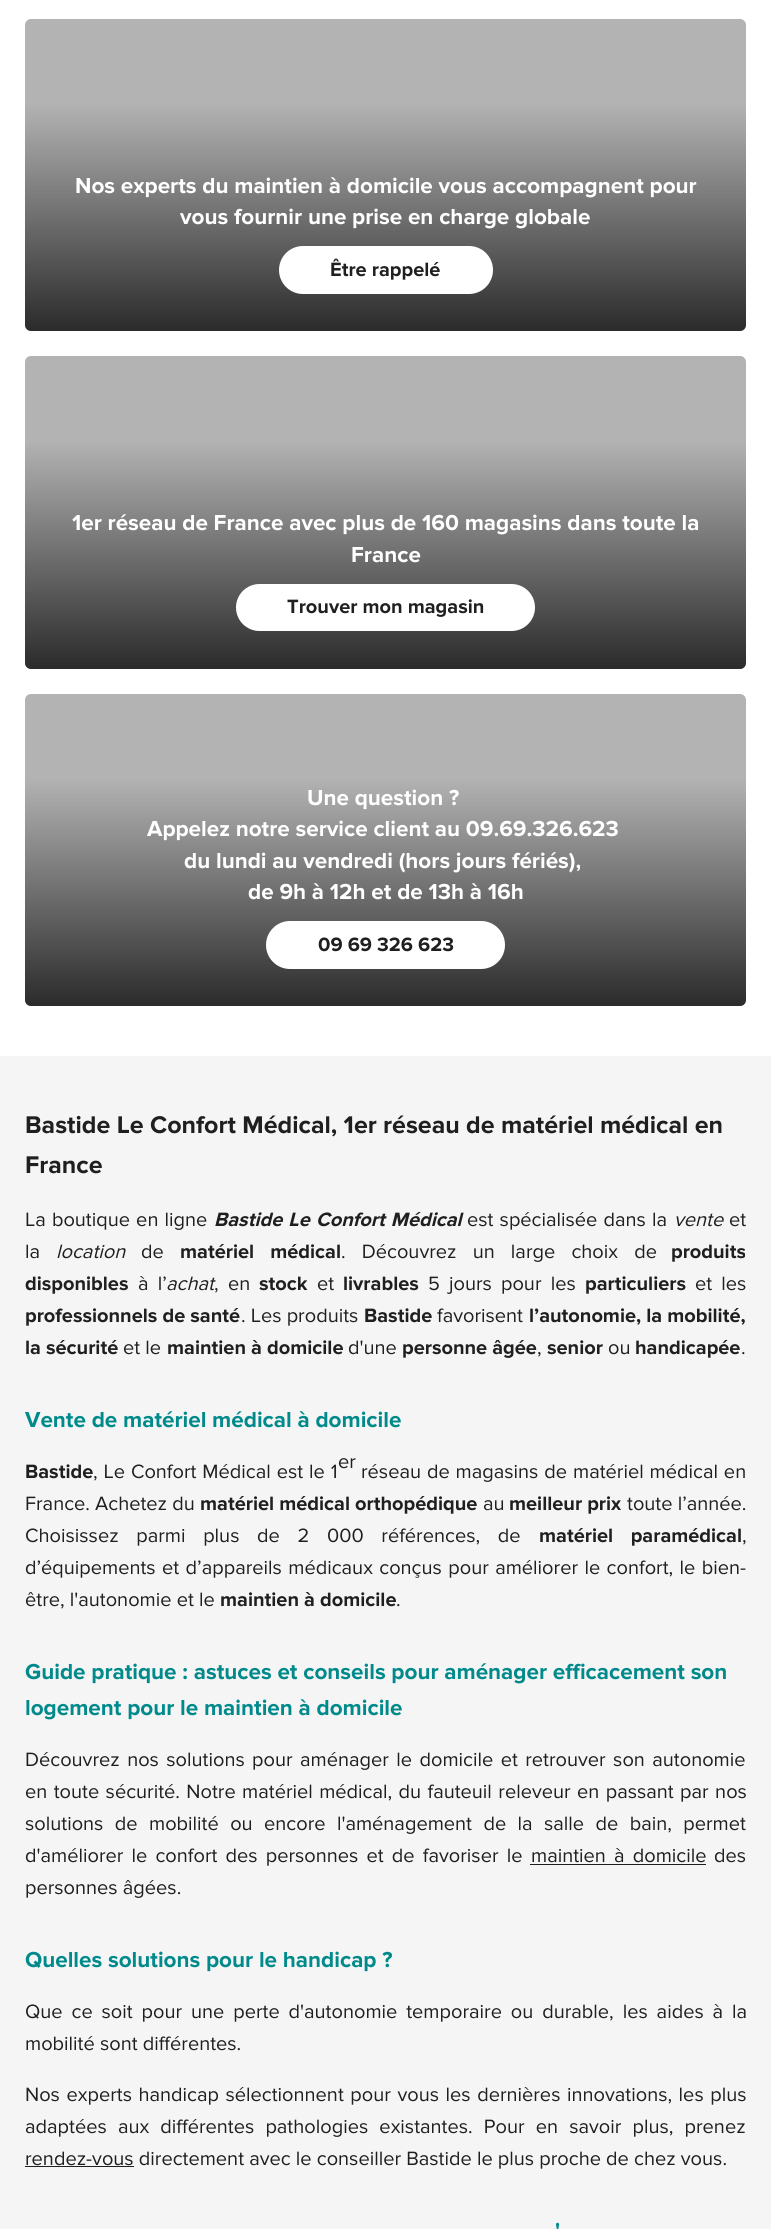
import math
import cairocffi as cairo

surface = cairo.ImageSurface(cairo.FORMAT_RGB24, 771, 2229)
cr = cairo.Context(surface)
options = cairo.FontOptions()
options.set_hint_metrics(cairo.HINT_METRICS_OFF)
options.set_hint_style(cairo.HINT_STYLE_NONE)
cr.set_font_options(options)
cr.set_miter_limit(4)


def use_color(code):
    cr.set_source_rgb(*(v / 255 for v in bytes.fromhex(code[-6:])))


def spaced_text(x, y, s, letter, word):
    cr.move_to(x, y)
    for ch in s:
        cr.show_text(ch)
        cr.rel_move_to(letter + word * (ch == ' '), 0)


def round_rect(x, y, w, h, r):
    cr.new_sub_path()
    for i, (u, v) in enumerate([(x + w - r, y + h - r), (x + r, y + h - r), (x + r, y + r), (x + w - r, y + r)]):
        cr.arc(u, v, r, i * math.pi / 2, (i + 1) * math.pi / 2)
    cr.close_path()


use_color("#ffffff")
cr.paint()
use_color("#b3b3b3")
round_rect(25, 19, 721, 312, 6)
cr.fill()
gradient = cairo.LinearGradient(386, 331, 386, 19)
gradient.add_color_stop_rgba(0, 0, 0, 0, 0.76)
gradient.add_color_stop_rgba(0.73, 0, 0, 0, 0)
cr.set_source(gradient)
round_rect(25, 19, 721, 312, 6)
cr.fill()
cr.select_font_face("Proxima Nova", cairo.FONT_SLANT_NORMAL, cairo.FONT_WEIGHT_BOLD)
cr.set_font_size(22.5)
use_color("#ffffff")
cr.move_to(75, 193)
cr.show_text("Nos experts du maintien à domicile vous accompagnent pour")
cr.move_to(180, 224)
cr.show_text("vous fournir une prise en charge globale")
round_rect(279, 246, 214, 48, 24)
cr.fill()
cr.set_font_size(20)
use_color("#1f1f1f")
cr.move_to(330, 276)
cr.show_text("Être rappelé")
use_color("#b3b3b3")
round_rect(25, 356, 721, 313, 6)
cr.fill()
gradient = cairo.LinearGradient(386, 669, 386, 356)
gradient.add_color_stop_rgba(0, 0, 0, 0, 0.76)
gradient.add_color_stop_rgba(0.73, 0, 0, 0, 0)
cr.set_source(gradient)
round_rect(25, 356, 721, 313, 6)
cr.fill()
cr.set_font_size(22.5)
use_color("#ffffff")
cr.move_to(72, 530)
cr.show_text("1er réseau de France avec plus de 160 magasins dans toute la")
cr.move_to(351, 562)
cr.show_text("France")
round_rect(236, 584, 299, 47, 23.5)
cr.fill()
cr.set_font_size(20)
use_color("#1f1f1f")
cr.move_to(287, 613)
cr.show_text("Trouver mon magasin")
use_color("#b3b3b3")
round_rect(25, 694, 721, 312, 6)
cr.fill()
gradient = cairo.LinearGradient(386, 1006, 386, 694)
gradient.add_color_stop_rgba(0, 0, 0, 0, 0.76)
gradient.add_color_stop_rgba(0.73, 0, 0, 0, 0)
cr.set_source(gradient)
round_rect(25, 694, 721, 312, 6)
cr.fill()
cr.set_font_size(22.5)
use_color("#ffffff")
cr.move_to(307, 805)
cr.show_text("Une question ?")
cr.move_to(147, 836)
cr.show_text("Appelez notre service client au 09.69.326.623")
cr.move_to(184, 868)
cr.show_text("du lundi au vendredi (hors jours fériés),")
cr.move_to(248, 899)
cr.show_text("de 9h à 12h et de 13h à 16h")
round_rect(266, 921, 239, 48, 24)
cr.fill()
cr.set_font_size(20)
use_color("#1f1f1f")
cr.move_to(318, 951)
cr.show_text("09 69 326 623")
use_color("#f5f5f5")
cr.rectangle(0, 1056, 771, 1173)
cr.fill()
cr.set_font_size(25)
use_color("#1f1f1f")
cr.move_to(25, 1133)
cr.show_text("Bastide Le Confort Médical, 1er réseau de matériel médical en")
cr.move_to(25, 1173)
cr.show_text("France")
cr.select_font_face("Proxima Nova")
cr.set_font_size(20)
spaced_text(25, 1226, "La boutique en ligne", 0, 1)
cr.select_font_face("Proxima Nova", cairo.FONT_SLANT_ITALIC, cairo.FONT_WEIGHT_BOLD)
spaced_text(214, 1226, "Bastide Le Confort Médical", 0, 1)
cr.select_font_face("Proxima Nova")
spaced_text(467, 1226, "est spécialisée dans la", 0, 1)
cr.select_font_face("Proxima Nova", cairo.FONT_SLANT_ITALIC)
cr.move_to(674, 1226)
cr.show_text("vente")
cr.select_font_face("Proxima Nova")
cr.move_to(729, 1226)
cr.show_text("et")
cr.move_to(25, 1258)
cr.show_text("la")
cr.select_font_face("Proxima Nova", cairo.FONT_SLANT_ITALIC)
cr.move_to(56, 1258)
cr.show_text("location")
cr.select_font_face("Proxima Nova")
cr.move_to(141, 1258)
cr.show_text("de")
cr.select_font_face("Proxima Nova", cairo.FONT_SLANT_NORMAL, cairo.FONT_WEIGHT_BOLD)
spaced_text(180, 1258, "matériel médical", 0, 11)
cr.select_font_face("Proxima Nova")
spaced_text(341, 1258, ". Découvrez un large choix de", 0, 11)
cr.select_font_face("Proxima Nova", cairo.FONT_SLANT_NORMAL, cairo.FONT_WEIGHT_BOLD)
cr.move_to(671, 1258)
cr.show_text("produits")
cr.move_to(25, 1290)
cr.show_text("disponibles")
cr.select_font_face("Proxima Nova")
spaced_text(138, 1290, "à l’", 0, 4)
cr.select_font_face("Proxima Nova", cairo.FONT_SLANT_ITALIC)
cr.move_to(166, 1290)
cr.show_text("achat")
cr.select_font_face("Proxima Nova")
cr.move_to(214, 1290)
cr.show_text(",")
cr.move_to(228, 1290)
cr.show_text("en")
cr.select_font_face("Proxima Nova", cairo.FONT_SLANT_NORMAL, cairo.FONT_WEIGHT_BOLD)
cr.move_to(259, 1290)
cr.show_text("stock")
cr.select_font_face("Proxima Nova")
cr.move_to(317, 1290)
cr.show_text("et")
cr.select_font_face("Proxima Nova", cairo.FONT_SLANT_NORMAL, cairo.FONT_WEIGHT_BOLD)
cr.move_to(343, 1290)
cr.show_text("livrables")
cr.select_font_face("Proxima Nova")
spaced_text(428, 1290, "5 jours pour les", 0, 4)
cr.select_font_face("Proxima Nova", cairo.FONT_SLANT_NORMAL, cairo.FONT_WEIGHT_BOLD)
cr.move_to(585, 1290)
cr.show_text("particuliers")
cr.select_font_face("Proxima Nova")
spaced_text(695, 1290, "et les", 0, 4)
cr.select_font_face("Proxima Nova", cairo.FONT_SLANT_NORMAL, cairo.FONT_WEIGHT_BOLD)
cr.move_to(25, 1322)
cr.show_text("professionnels de santé")
cr.select_font_face("Proxima Nova")
cr.move_to(241, 1322)
cr.show_text(". Les produits")
cr.select_font_face("Proxima Nova", cairo.FONT_SLANT_NORMAL, cairo.FONT_WEIGHT_BOLD)
cr.move_to(364, 1322)
cr.show_text("Bastide")
cr.select_font_face("Proxima Nova")
cr.move_to(437, 1322)
cr.show_text("favorisent")
cr.select_font_face("Proxima Nova", cairo.FONT_SLANT_NORMAL, cairo.FONT_WEIGHT_BOLD)
cr.move_to(529, 1322)
cr.show_text("l’autonomie, la mobilité,")
cr.move_to(25, 1354)
cr.show_text("la sécurité")
cr.select_font_face("Proxima Nova")
cr.move_to(123, 1354)
cr.show_text("et le")
cr.select_font_face("Proxima Nova", cairo.FONT_SLANT_NORMAL, cairo.FONT_WEIGHT_BOLD)
cr.move_to(167, 1354)
cr.show_text("maintien à domicile")
cr.select_font_face("Proxima Nova")
cr.move_to(348, 1354)
cr.show_text("d'une")
cr.select_font_face("Proxima Nova", cairo.FONT_SLANT_NORMAL, cairo.FONT_WEIGHT_BOLD)
cr.move_to(402, 1354)
cr.show_text("personne âgée")
cr.select_font_face("Proxima Nova")
cr.move_to(537, 1354)
cr.show_text(",")
cr.select_font_face("Proxima Nova", cairo.FONT_SLANT_NORMAL, cairo.FONT_WEIGHT_BOLD)
cr.move_to(547, 1354)
cr.show_text("senior")
cr.select_font_face("Proxima Nova")
cr.move_to(608, 1354)
cr.show_text("ou")
cr.select_font_face("Proxima Nova", cairo.FONT_SLANT_NORMAL, cairo.FONT_WEIGHT_BOLD)
cr.move_to(635, 1354)
cr.show_text("handicapée")
cr.select_font_face("Proxima Nova")
cr.move_to(741, 1354)
cr.show_text(".")
cr.select_font_face("Proxima Nova", cairo.FONT_SLANT_NORMAL, cairo.FONT_WEIGHT_BOLD)
cr.set_font_size(22.5)
use_color("#008a8b")
cr.move_to(25, 1427)
cr.show_text("Vente de matériel médical à domicile")
cr.set_font_size(20)
use_color("#1f1f1f")
cr.move_to(25, 1478)
cr.show_text("Bastide")
cr.select_font_face("Proxima Nova")
spaced_text(93, 1478, ", Le Confort Médical est le 1", 0, 0.75)
cr.move_to(338, 1468)
cr.show_text("er")
spaced_text(361, 1478, "réseau de magasins de matériel médical en", 0, 0.75)
cr.move_to(25, 1510)
cr.show_text("France. Achetez du")
cr.select_font_face("Proxima Nova", cairo.FONT_SLANT_NORMAL, cairo.FONT_WEIGHT_BOLD)
cr.move_to(200, 1510)
cr.show_text("matériel médical orthopédique")
cr.select_font_face("Proxima Nova")
cr.move_to(483, 1510)
cr.show_text("au")
cr.select_font_face("Proxima Nova", cairo.FONT_SLANT_NORMAL, cairo.FONT_WEIGHT_BOLD)
cr.move_to(509, 1510)
cr.show_text("meilleur prix")
cr.select_font_face("Proxima Nova")
cr.move_to(627, 1510)
cr.show_text("toute l’année.")
spaced_text(25, 1542, "Choisissez parmi plus de 2 000 références, de", 0, 12.5)
cr.select_font_face("Proxima Nova", cairo.FONT_SLANT_NORMAL, cairo.FONT_WEIGHT_BOLD)
spaced_text(539, 1542, "matériel paramédical", 0, 12.5)
cr.select_font_face("Proxima Nova")
cr.move_to(742, 1542)
cr.show_text(",")
spaced_text(25, 1574, "d’équipements et d’appareils médicaux conçus pour améliorer le confort, le bien-", 0, 1.25)
cr.move_to(25, 1606)
cr.show_text("être, l'autonomie et le")
cr.select_font_face("Proxima Nova", cairo.FONT_SLANT_NORMAL, cairo.FONT_WEIGHT_BOLD)
cr.move_to(220, 1606)
cr.show_text("maintien à domicile")
cr.select_font_face("Proxima Nova")
cr.move_to(396, 1606)
cr.show_text(".")
cr.select_font_face("Proxima Nova", cairo.FONT_SLANT_NORMAL, cairo.FONT_WEIGHT_BOLD)
cr.set_font_size(22.5)
use_color("#008a8b")
cr.move_to(25, 1679)
cr.show_text("Guide pratique : astuces et conseils pour aménager efficacement son")
cr.move_to(25, 1715)
cr.show_text("logement pour le maintien à domicile")
cr.select_font_face("Proxima Nova")
cr.set_font_size(20)
use_color("#1f1f1f")
spaced_text(25, 1766, "Découvrez nos solutions pour aménager le domicile et retrouver son autonomie", 0, 2.25)
spaced_text(25, 1798, "en toute sécurité. Notre matériel médical, du fauteuil releveur en passant par nos", 0, 1.25)
spaced_text(25, 1830, "solutions de mobilité ou encore l'aménagement de la salle de bain, permet", 0, 6.25)
spaced_text(25, 1862, "d'améliorer le confort des personnes et de favoriser le", 0, 3)
spaced_text(531, 1862, "maintien à domicile", 0, 3)
cr.rectangle(530, 1864, 176, 1)
cr.fill()
cr.move_to(714, 1862)
cr.show_text("des")
cr.move_to(25, 1894)
cr.show_text("personnes âgées.")
cr.select_font_face("Proxima Nova", cairo.FONT_SLANT_NORMAL, cairo.FONT_WEIGHT_BOLD)
cr.set_font_size(22.5)
use_color("#008a8b")
cr.move_to(25, 1967)
cr.show_text("Quelles solutions pour le handicap ?")
cr.select_font_face("Proxima Nova")
cr.set_font_size(20)
use_color("#1f1f1f")
spaced_text(25, 2018, "Que ce soit pour une perte d'autonomie temporaire ou durable, les aides à la", 0, 3.75)
cr.move_to(25, 2050)
cr.show_text("mobilité sont différentes.")
spaced_text(25, 2101, "Nos experts handicap sélectionnent pour vous les dernières innovations, les plus", 0, 1.4)
spaced_text(25, 2133, "adaptées aux différentes pathologies existantes. Pour en savoir plus, prenez", 0, 6)
cr.rectangle(25, 2166, 109, 1)
cr.fill()
cr.move_to(25, 2165)
cr.show_text("rendez-vous directement avec le conseiller Bastide le plus proche de chez vous.")
cr.select_font_face("Proxima Nova", cairo.FONT_SLANT_NORMAL, cairo.FONT_WEIGHT_BOLD)
cr.set_font_size(22.5)
use_color("#008a8b")
cr.move_to(555, 2238)
cr.show_text("'")
surface.write_to_png("result.png")
